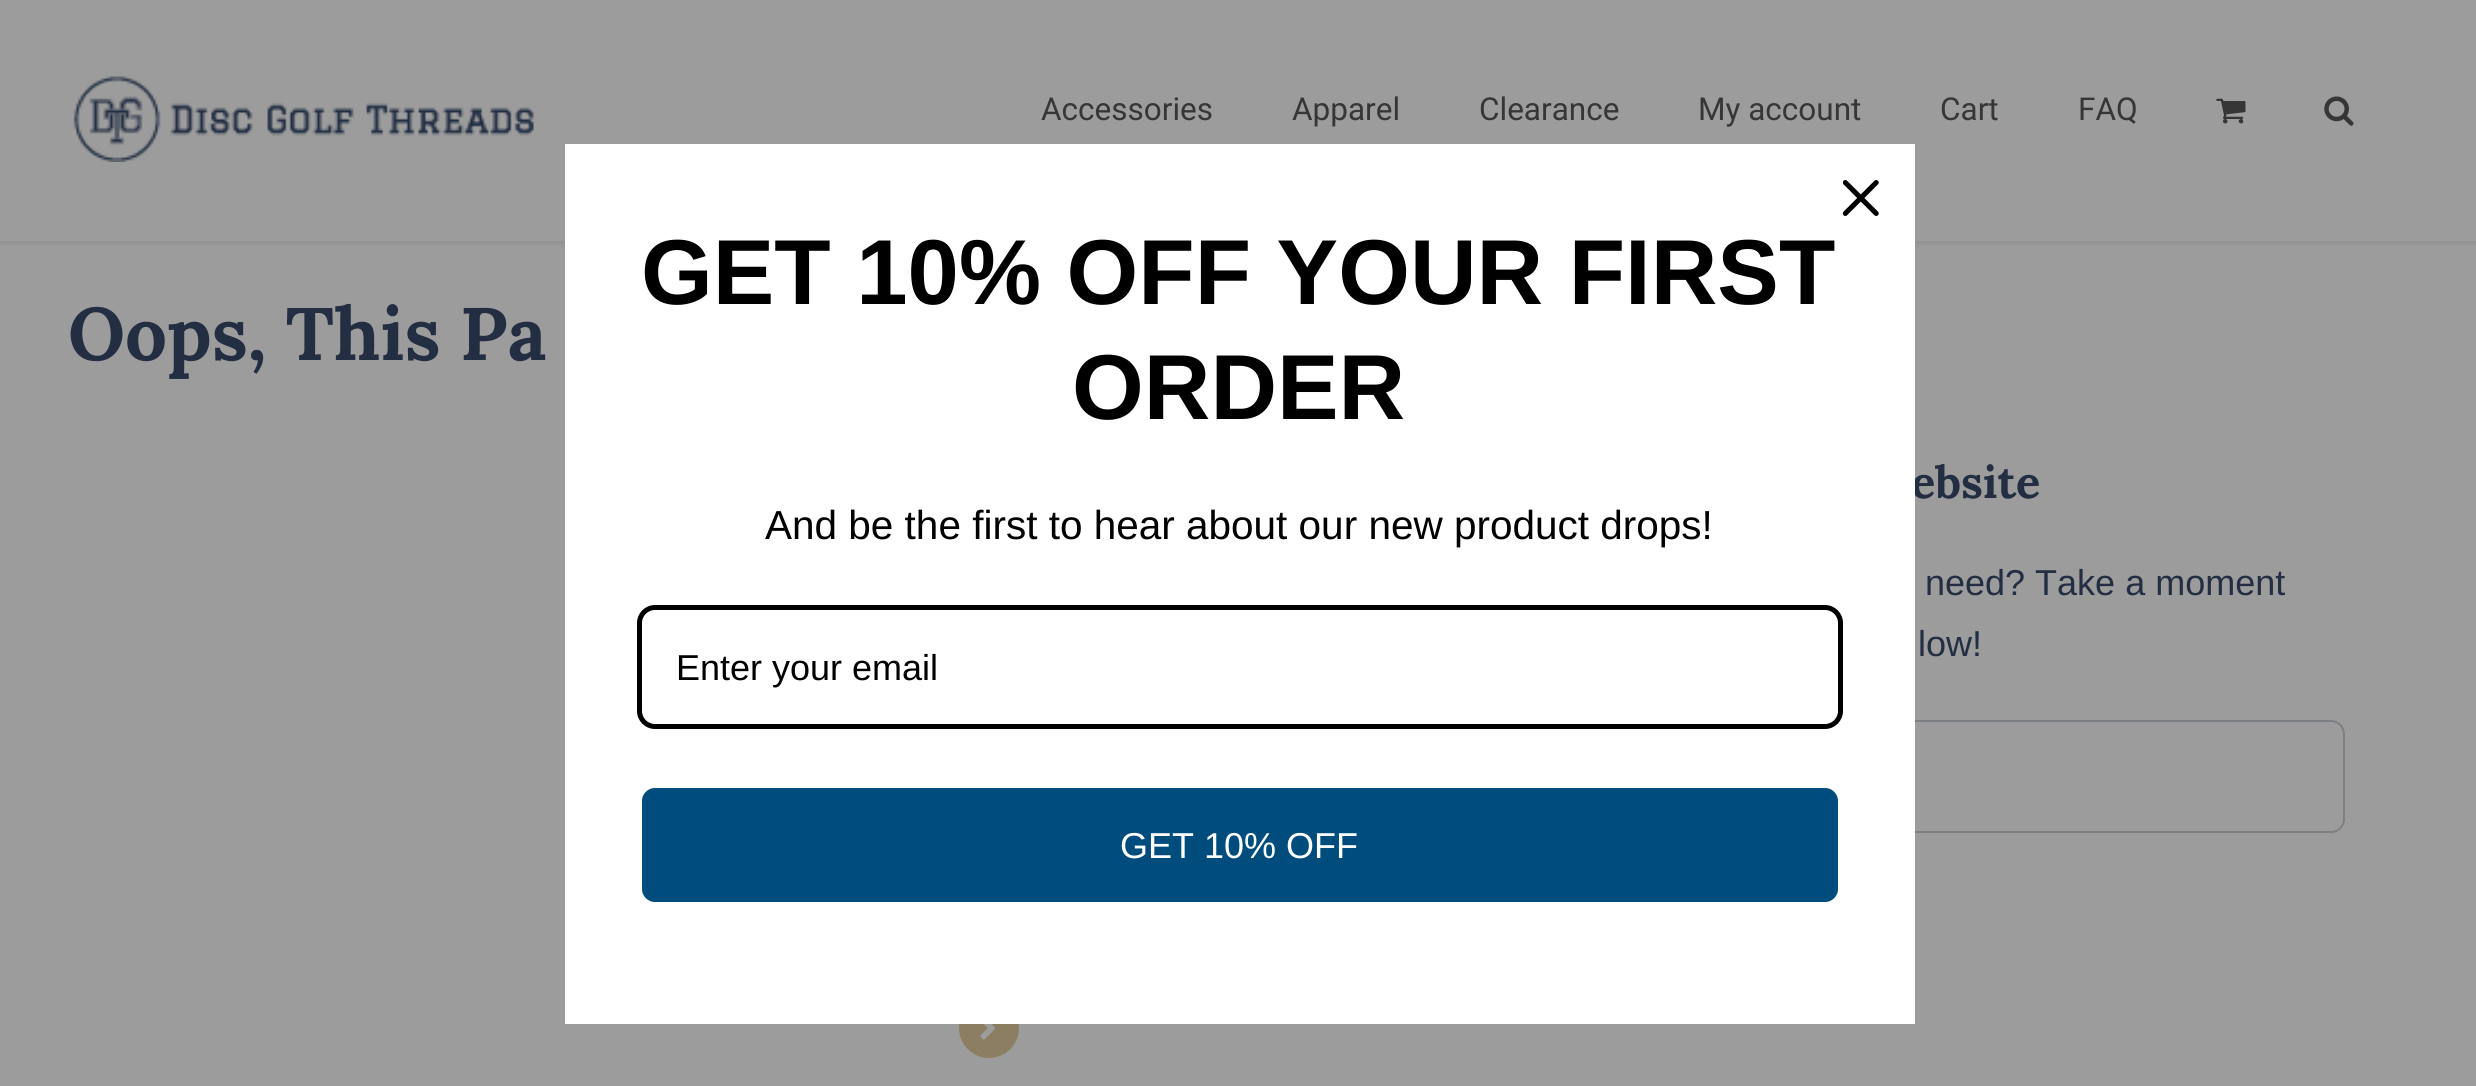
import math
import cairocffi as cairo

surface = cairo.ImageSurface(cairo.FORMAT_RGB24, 2476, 1086)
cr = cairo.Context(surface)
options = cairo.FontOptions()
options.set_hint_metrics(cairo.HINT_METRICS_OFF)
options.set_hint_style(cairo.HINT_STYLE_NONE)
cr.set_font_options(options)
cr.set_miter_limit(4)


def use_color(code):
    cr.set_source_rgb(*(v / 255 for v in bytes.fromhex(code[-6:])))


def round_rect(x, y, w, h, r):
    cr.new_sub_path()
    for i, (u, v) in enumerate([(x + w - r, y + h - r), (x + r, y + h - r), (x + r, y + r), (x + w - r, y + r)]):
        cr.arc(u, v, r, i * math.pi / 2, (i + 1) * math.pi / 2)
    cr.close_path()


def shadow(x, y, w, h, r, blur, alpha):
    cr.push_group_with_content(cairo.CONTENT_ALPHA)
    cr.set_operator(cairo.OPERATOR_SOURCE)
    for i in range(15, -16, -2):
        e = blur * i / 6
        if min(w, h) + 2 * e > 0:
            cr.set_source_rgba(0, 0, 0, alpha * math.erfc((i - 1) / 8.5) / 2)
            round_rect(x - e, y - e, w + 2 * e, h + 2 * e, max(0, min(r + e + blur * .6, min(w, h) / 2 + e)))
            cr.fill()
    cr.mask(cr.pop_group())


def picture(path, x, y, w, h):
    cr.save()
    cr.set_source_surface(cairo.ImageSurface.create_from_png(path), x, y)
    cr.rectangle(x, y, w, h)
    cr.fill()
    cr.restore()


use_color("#9c9c9c")
cr.paint()
use_color("#1c1c1c")
shadow(0, 2, 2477, 241, 0, 3.5, 0.12)
use_color("#9c9c9c")
cr.rectangle(0, 0, 2476, 241)
cr.fill()
picture("img1.png", 73, 76, 461, 86)
cr.select_font_face("Roboto")
cr.set_font_size(31.5)
use_color("#363636")
cr.move_to(1041, 120)
cr.show_text("Accessories")
cr.move_to(1292, 120)
cr.show_text("Apparel")
cr.move_to(1479, 120)
cr.show_text("Clearance")
cr.move_to(1698, 120)
cr.show_text("My account")
cr.move_to(1940, 120)
cr.show_text("Cart")
cr.move_to(2078, 120)
cr.show_text("FAQ")
picture("img2.png", 2216, 98, 30, 26)
picture("img3.png", 2324, 96, 30, 30)
cr.select_font_face("Lora", cairo.FONT_SLANT_NORMAL, cairo.FONT_WEIGHT_BOLD)
cr.set_font_size(74.25)
use_color("#232e42")
cr.move_to(68, 360)
cr.show_text("Oops, This Pa")
cr.set_font_size(45)
cr.move_to(1911, 498)
cr.show_text("ebsite")
cr.select_font_face("Liberation Sans")
cr.set_font_size(36)
cr.move_to(1925, 595)
cr.show_text("need? Take a moment")
cr.move_to(1918, 656)
cr.show_text("low!")
round_rect(1610, 721, 734, 111, 13)
use_color("#7c7f84")
cr.stroke()
use_color("#8c7e62")
round_rect(959, 997, 60, 61, 30)
cr.fill()
picture("img4.png", 980, 1024, 15, 16)
use_color("#ffffff")
cr.rectangle(565, 144, 1350, 880)
cr.fill()
picture("img5.png", 1843, 180, 36, 36)
cr.select_font_face("Liberation Sans", cairo.FONT_SLANT_NORMAL, cairo.FONT_WEIGHT_BOLD)
cr.set_font_size(92.25)
use_color("#000000")
cr.move_to(641, 304)
cr.show_text("GET 10% OFF YOUR FIRST")
cr.move_to(1072, 419)
cr.show_text("ORDER")
cr.select_font_face("Liberation Sans")
cr.set_font_size(40.5)
cr.move_to(765, 539)
cr.show_text("And be the first to hear about our new product drops!")
round_rect(639.5, 607.5, 1201, 119, 15.5)
cr.set_line_width(5)
cr.stroke()
cr.set_font_size(36)
cr.move_to(676, 680)
cr.show_text("Enter your email")
use_color("#004d7d")
round_rect(639.5, 785.5, 1201, 119, 15.5)
cr.fill_preserve()
use_color("#ffffff")
cr.stroke()
cr.move_to(1120, 858)
cr.show_text("GET 10% OFF")
surface.write_to_png("result.png")
